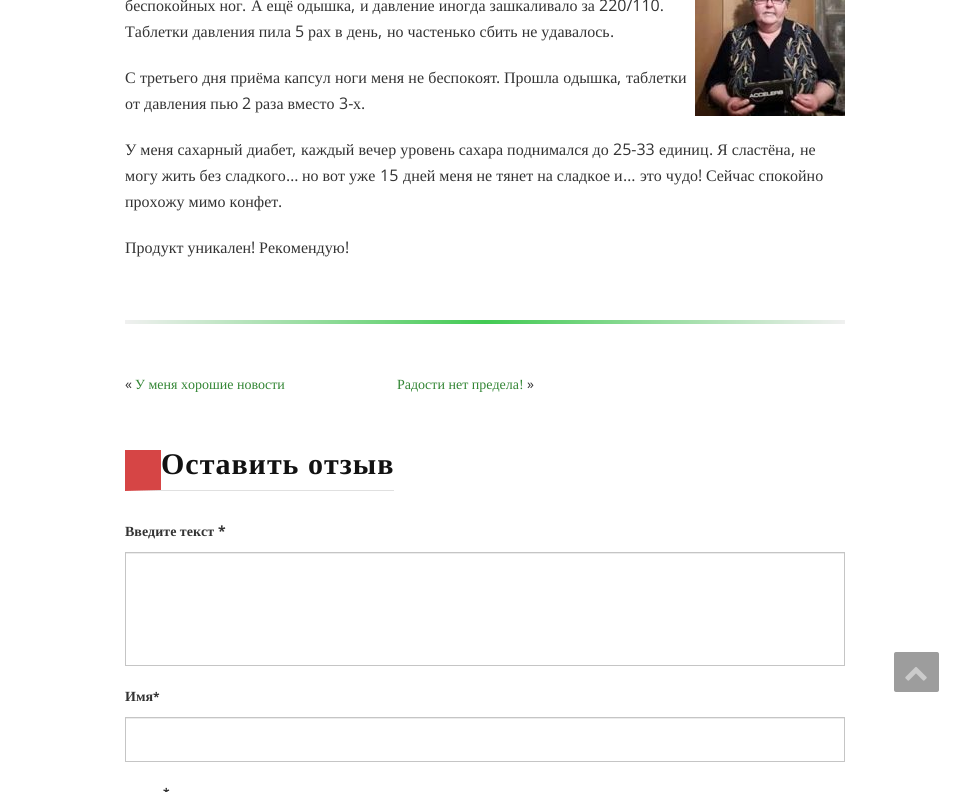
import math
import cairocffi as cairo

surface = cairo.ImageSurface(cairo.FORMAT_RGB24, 969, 792)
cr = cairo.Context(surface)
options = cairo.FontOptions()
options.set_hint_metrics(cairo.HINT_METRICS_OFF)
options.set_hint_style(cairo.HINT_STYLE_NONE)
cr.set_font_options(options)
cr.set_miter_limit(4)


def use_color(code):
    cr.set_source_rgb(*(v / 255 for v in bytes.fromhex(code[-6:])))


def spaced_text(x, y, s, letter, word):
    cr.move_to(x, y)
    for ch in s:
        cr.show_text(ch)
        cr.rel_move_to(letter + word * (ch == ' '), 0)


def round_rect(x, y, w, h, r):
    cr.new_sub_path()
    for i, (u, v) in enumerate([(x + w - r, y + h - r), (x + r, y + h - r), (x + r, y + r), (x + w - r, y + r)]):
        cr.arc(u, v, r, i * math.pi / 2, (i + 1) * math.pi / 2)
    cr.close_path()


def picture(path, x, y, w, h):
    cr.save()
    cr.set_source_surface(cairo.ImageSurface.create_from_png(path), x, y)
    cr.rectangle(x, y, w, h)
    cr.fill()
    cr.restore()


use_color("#ffffff")
cr.paint()
cr.select_font_face("Liberation Serif")
cr.set_font_size(16)
use_color("#333333")
cr.move_to(125, 11)
cr.show_text("беспокойных ног")
cr.select_font_face("Open Sans")
cr.move_to(242, 11)
cr.show_text(".")
cr.select_font_face("Liberation Serif")
cr.move_to(251, 11)
cr.show_text("А ещё одышка")
cr.select_font_face("Open Sans")
cr.move_to(351, 11)
cr.show_text(",")
cr.select_font_face("Liberation Serif")
cr.move_to(360, 11)
cr.show_text("и давление иногда зашкаливало за")
cr.select_font_face("Open Sans")
cr.move_to(599, 11)
cr.show_text("220/110.")
picture("img1.png", 695, 0, 150, 116)
cr.save()
cr.rectangle(125, 0, 720, 280)
cr.clip()
cr.select_font_face("Liberation Serif")
cr.move_to(125, 37)
cr.show_text("Таблетки давления пила")
cr.restore()
cr.move_to(295, 37)
cr.show_text("5")
cr.select_font_face("Liberation Serif")
cr.move_to(308, 37)
cr.show_text("рах в день")
cr.select_font_face("Open Sans")
cr.move_to(378, 37)
cr.show_text(",")
cr.select_font_face("Liberation Serif")
cr.move_to(387, 37)
cr.show_text("но частенько сбить не удавалось")
cr.select_font_face("Open Sans")
cr.move_to(610, 37)
cr.show_text(".")
cr.select_font_face("Liberation Serif")
spaced_text(125, 83, "С третьего дня приёма капсул ноги меня не беспокоят", 0, 0.25)
cr.select_font_face("Open Sans")
cr.move_to(496, 83)
cr.show_text(".")
cr.select_font_face("Liberation Serif")
spaced_text(504, 83, "Прошла одышка", 0, 0.25)
cr.select_font_face("Open Sans")
cr.move_to(617, 83)
cr.show_text(",")
cr.select_font_face("Liberation Serif")
cr.move_to(626, 83)
cr.show_text("таблетки")
cr.move_to(125, 109)
cr.show_text("от давления пью")
cr.select_font_face("Open Sans")
cr.move_to(242, 109)
cr.show_text("2")
cr.select_font_face("Liberation Serif")
cr.move_to(255, 109)
cr.show_text("раза вместо")
cr.select_font_face("Open Sans")
cr.move_to(339, 109)
cr.show_text("3-")
cr.select_font_face("Liberation Serif")
cr.move_to(353, 109)
cr.show_text("х")
cr.select_font_face("Open Sans")
cr.move_to(361, 109)
cr.show_text(".")
cr.select_font_face("Liberation Serif")
cr.move_to(125, 155)
cr.show_text("У меня сахарный диабет")
cr.select_font_face("Open Sans")
cr.move_to(292, 155)
cr.show_text(",")
cr.select_font_face("Liberation Serif")
cr.move_to(301, 155)
cr.show_text("каждый вечер уровень сахара поднимался до")
cr.select_font_face("Open Sans")
cr.move_to(613, 155)
cr.show_text("25-33")
cr.select_font_face("Liberation Serif")
cr.move_to(659, 155)
cr.show_text("единиц")
cr.select_font_face("Open Sans")
cr.move_to(709, 155)
cr.show_text(".")
cr.select_font_face("Liberation Serif")
cr.move_to(717, 155)
cr.show_text("Я сластёна")
cr.select_font_face("Open Sans")
cr.move_to(791, 155)
cr.show_text(",")
cr.select_font_face("Liberation Serif")
cr.move_to(800, 155)
cr.show_text("не")
cr.move_to(125, 181)
cr.show_text("могу жить без сладкого")
cr.select_font_face("Open Sans")
cr.move_to(286, 181)
cr.show_text("…")
cr.select_font_face("Liberation Serif")
cr.move_to(302, 181)
cr.show_text("но вот уже")
cr.select_font_face("Open Sans")
cr.move_to(380, 181)
cr.show_text("15")
cr.select_font_face("Liberation Serif")
cr.move_to(403, 181)
cr.show_text("дней меня не тянет на сладкое и")
cr.select_font_face("Open Sans")
cr.move_to(623, 181)
cr.show_text("…")
cr.select_font_face("Liberation Serif")
cr.move_to(640, 181)
cr.show_text("это чудо")
cr.select_font_face("Open Sans")
cr.move_to(698, 181)
cr.show_text("!")
cr.select_font_face("Liberation Serif")
cr.move_to(706, 181)
cr.show_text("Сейчас спокойно")
cr.move_to(125, 207)
cr.show_text("прохожу мимо конфет")
cr.select_font_face("Open Sans")
cr.move_to(278, 207)
cr.show_text(".")
cr.select_font_face("Liberation Serif")
cr.move_to(125, 253)
cr.show_text("Продукт уникален")
cr.select_font_face("Open Sans")
cr.move_to(251, 253)
cr.show_text("!")
cr.select_font_face("Liberation Serif")
cr.move_to(259, 253)
cr.show_text("Рекомендую")
cr.select_font_face("Open Sans")
cr.move_to(345, 253)
cr.show_text("!")
gradient = cairo.LinearGradient(125, 322, 845, 322)
gradient.add_color_stop_rgba(0, 0.941, 0.941, 0.941, 1)
gradient.add_color_stop_rgba(0.5, 0.259, 0.792, 0.325, 1)
gradient.add_color_stop_rgba(1, 0.941, 0.941, 0.941, 1)
cr.set_source(gradient)
cr.rectangle(125, 320, 720, 4)
cr.fill()
cr.set_font_size(14)
use_color("#333333")
cr.move_to(125, 389)
cr.show_text("«")
cr.select_font_face("Liberation Serif")
use_color("#338635")
cr.move_to(135, 389)
cr.show_text("У меня хорошие новости")
cr.move_to(397, 389)
cr.show_text("Радости нет предела!")
cr.select_font_face("Open Sans")
use_color("#333333")
cr.move_to(527, 389)
cr.show_text("»")
use_color("#e0e0e0")
cr.new_path()
cr.move_to(394, 491)
cr.line_to(125, 491)
cr.line_to(161, 490)
cr.line_to(394, 490)
cr.close_path()
cr.fill()
use_color("#d64545")
cr.new_path()
cr.move_to(125, 491)
cr.line_to(125, 450)
cr.line_to(161, 450)
cr.line_to(161, 490)
cr.close_path()
cr.fill()
cr.select_font_face("Liberation Serif", cairo.FONT_SLANT_NORMAL, cairo.FONT_WEIGHT_BOLD)
cr.set_font_size(30)
use_color("#121212")
spaced_text(161, 474, "Оставить отзыв", 1, 0)
cr.set_font_size(14)
use_color("#333333")
cr.move_to(125, 536)
cr.show_text("Введите текст")
cr.select_font_face("Open Sans", cairo.FONT_SLANT_NORMAL, cairo.FONT_WEIGHT_BOLD)
cr.move_to(218, 536)
cr.show_text("*")
use_color("#ececec")
cr.rectangle(126, 553, 718, 1)
cr.fill()
cr.rectangle(125.5, 552.5, 719, 113)
use_color("#c5c5c5")
cr.set_line_width(1)
cr.stroke()
cr.select_font_face("Liberation Serif", cairo.FONT_SLANT_NORMAL, cairo.FONT_WEIGHT_BOLD)
use_color("#333333")
cr.move_to(125, 701)
cr.show_text("Имя")
cr.select_font_face("Open Sans", cairo.FONT_SLANT_NORMAL, cairo.FONT_WEIGHT_BOLD)
cr.set_font_size(12)
cr.move_to(153, 701)
cr.show_text("*")
use_color("#ececec")
cr.rectangle(126, 718, 718, 1)
cr.fill()
cr.rectangle(125.5, 717.5, 719, 44)
use_color("#c5c5c5")
cr.stroke()
use_color("#333333")
cr.move_to(163, 797)
cr.show_text("*")
use_color("#9d9d9d")
round_rect(894, 652, 45, 40, 2)
cr.fill()
picture("img2.png", 905, 667, 22, 14)
surface.write_to_png("result.png")
